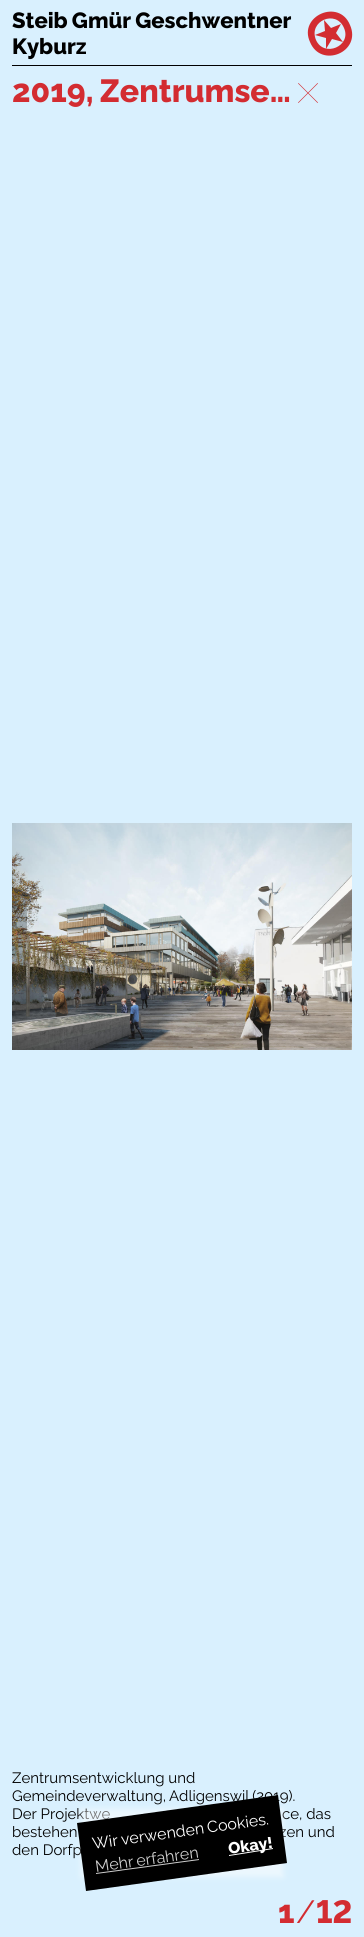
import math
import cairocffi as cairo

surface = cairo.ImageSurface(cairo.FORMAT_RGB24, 364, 1937)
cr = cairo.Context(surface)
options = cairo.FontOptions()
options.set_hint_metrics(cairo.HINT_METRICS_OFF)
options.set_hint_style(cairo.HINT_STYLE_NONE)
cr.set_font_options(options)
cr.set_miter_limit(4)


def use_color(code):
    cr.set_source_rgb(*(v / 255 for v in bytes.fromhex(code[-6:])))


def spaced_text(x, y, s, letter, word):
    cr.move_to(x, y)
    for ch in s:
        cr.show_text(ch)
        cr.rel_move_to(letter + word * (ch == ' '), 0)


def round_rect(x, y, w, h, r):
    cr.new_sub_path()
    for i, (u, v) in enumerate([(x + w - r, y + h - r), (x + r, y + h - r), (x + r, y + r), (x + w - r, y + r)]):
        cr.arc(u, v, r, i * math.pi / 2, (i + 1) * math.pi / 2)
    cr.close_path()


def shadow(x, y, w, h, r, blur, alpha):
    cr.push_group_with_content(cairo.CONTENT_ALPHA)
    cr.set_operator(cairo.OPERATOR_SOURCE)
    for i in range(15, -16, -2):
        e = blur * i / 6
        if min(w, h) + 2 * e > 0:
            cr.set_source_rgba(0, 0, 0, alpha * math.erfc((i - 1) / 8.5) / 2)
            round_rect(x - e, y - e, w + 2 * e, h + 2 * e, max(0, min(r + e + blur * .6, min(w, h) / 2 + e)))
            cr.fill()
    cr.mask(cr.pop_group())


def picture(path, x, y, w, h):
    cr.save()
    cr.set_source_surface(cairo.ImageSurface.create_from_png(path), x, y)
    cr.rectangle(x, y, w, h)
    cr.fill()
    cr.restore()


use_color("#d9f0fe")
cr.paint()
use_color("#000000")
cr.rectangle(12, 65, 340, 1)
cr.fill()
cr.select_font_face("Raleway ExtraBold")
cr.set_font_size(22)
spaced_text(12, 28, "Steib Gmür Geschwentner", 0, -1)
cr.move_to(12, 54)
cr.show_text("Kyburz")
use_color("#d32c31")
cr.new_path()
cr.move_to(324, 20)
cr.line_to(331, 28)
cr.line_to(341, 24)
cr.line_to(336, 33)
cr.line_to(343, 42)
cr.line_to(332, 39)
cr.line_to(326, 49)
cr.line_to(326, 38)
cr.line_to(315, 35)
cr.line_to(325, 31)
cr.close_path()
cr.move_to(350, 25)
cr.curve_to(339, -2, 298, 16, 310, 42)
cr.curve_to(321, 69, 362, 52, 350, 25)
cr.close_path()
cr.move_to(344, 28)
cr.curve_to(352, 46, 324, 58, 316, 40)
cr.curve_to(308, 21, 336, 9, 344, 28)
cr.close_path()
cr.fill()
cr.set_font_size(32)
spaced_text(12, 102, "2019, Zentrumse…", 0, -1)
picture("img1.png", 298, 83, 20, 20)
picture("img2.png", 12, 823, 340, 227)
cr.select_font_face("Raleway")
cr.set_font_size(15)
use_color("#000000")
cr.move_to(12, 1783)
cr.show_text("Zentrumsentwicklung und")
spaced_text(12, 1801, "Gemeindeverwaltung, Adligenswil (2019).", 0, -1)
cr.move_to(12, 1819)
cr.show_text("Der Projektwe")
cr.move_to(282, 1819)
cr.show_text("ce, das")
cr.move_to(12, 1837)
cr.show_text("bestehen")
cr.move_to(279, 1837)
cr.show_text("zen und")
cr.move_to(12, 1855)
cr.show_text("den Dorfp")
cr.select_font_face("Raleway ExtraBold")
cr.set_font_size(32)
use_color("#d32c31")
cr.move_to(278, 1923)
cr.show_text("1")
cr.select_font_face("Raleway")
cr.move_to(296, 1923)
cr.show_text("/")
cr.select_font_face("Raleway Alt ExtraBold")
cr.move_to(316, 1923)
cr.show_text("12")
use_color("#ffffff")
shadow(81, 1809, 202, 68, 0, 3, 0.5)
use_color("#000000")
cr.new_path()
cr.move_to(77, 1823)
cr.line_to(278, 1795)
cr.line_to(287, 1863)
cr.line_to(86, 1891)
cr.close_path()
cr.fill()
cr.select_font_face("Raleway")
cr.set_font_size(16)
use_color("#ffffff")
cr.save()
cr.translate(93, 1849)
cr.rotate(-8 * math.pi / 180)
spaced_text(0, 0, "Wir verwenden Cookies.", 0, -1)
cr.restore()
cr.new_path()
cr.move_to(229, 1855)
cr.line_to(273, 1848)
cr.line_to(273, 1849)
cr.line_to(229, 1856)
cr.close_path()
cr.fill()
cr.select_font_face("Raleway ExtraBold")
cr.save()
cr.translate(229, 1854)
cr.rotate(-8 * math.pi / 180)
cr.move_to(0, 0)
cr.show_text("Okay!")
cr.restore()
use_color("#cccccc")
cr.new_path()
cr.move_to(96, 1873)
cr.line_to(199, 1859)
cr.line_to(199, 1860)
cr.line_to(96, 1874)
cr.close_path()
cr.fill()
cr.select_font_face("Raleway")
cr.save()
cr.translate(96, 1872)
cr.rotate(-8 * math.pi / 180)
spaced_text(0, 0, "Mehr erfahren", 0, -1)
cr.restore()
surface.write_to_png("result.png")
